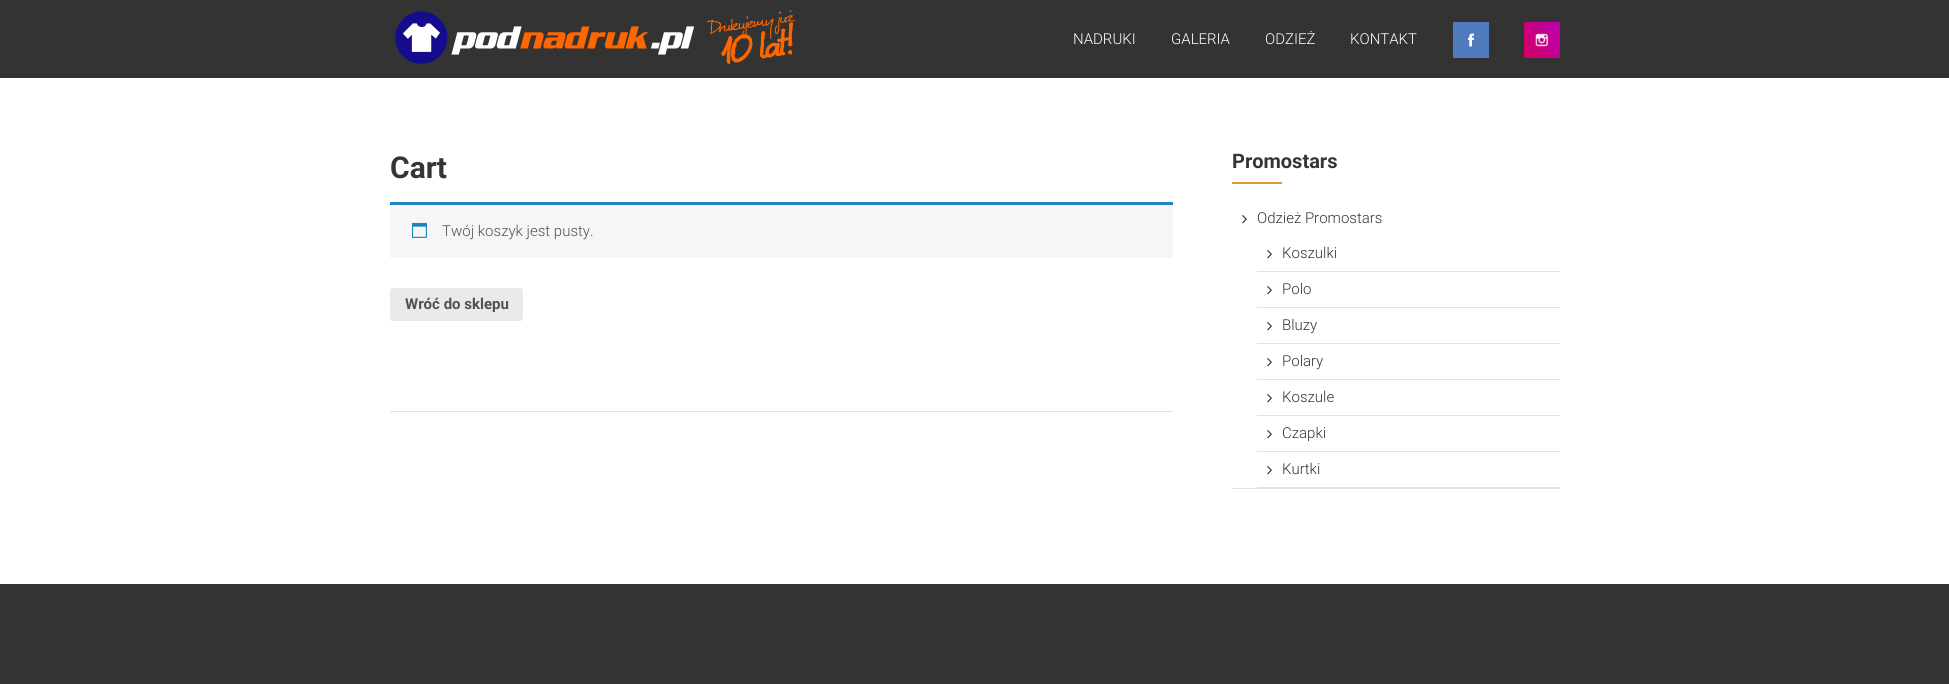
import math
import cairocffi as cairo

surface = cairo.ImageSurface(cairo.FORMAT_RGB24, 1949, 684)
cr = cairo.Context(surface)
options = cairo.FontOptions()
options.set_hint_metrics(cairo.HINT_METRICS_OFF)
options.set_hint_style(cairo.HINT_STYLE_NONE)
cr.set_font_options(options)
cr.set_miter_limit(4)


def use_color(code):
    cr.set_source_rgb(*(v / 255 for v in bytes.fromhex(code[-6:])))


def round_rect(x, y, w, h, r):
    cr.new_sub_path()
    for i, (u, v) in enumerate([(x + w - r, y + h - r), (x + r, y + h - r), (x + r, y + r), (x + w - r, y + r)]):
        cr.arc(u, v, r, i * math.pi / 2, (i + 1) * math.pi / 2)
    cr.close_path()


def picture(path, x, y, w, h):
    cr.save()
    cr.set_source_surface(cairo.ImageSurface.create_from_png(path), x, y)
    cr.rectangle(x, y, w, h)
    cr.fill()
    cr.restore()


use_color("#ffffff")
cr.paint()
use_color("#333333")
cr.rectangle(0, 0, 1949, 78)
cr.fill()
picture("img1.png", 395, 10, 401, 54)
cr.select_font_face("Roboto Light")
cr.set_font_size(15)
use_color("#ffffff")
cr.move_to(1073, 44)
cr.show_text("NADRUKI")
cr.move_to(1171, 44)
cr.show_text("GALERIA")
cr.move_to(1265, 44)
cr.show_text("ODZIEŻ")
cr.move_to(1350, 44)
cr.show_text("KONTAKT")
picture("img2.png", 1453, 22, 36, 36)
picture("img3.png", 1524, 22, 36, 36)
use_color("#e1e1e1")
cr.rectangle(390, 411, 783, 1)
cr.fill()
cr.select_font_face("Roboto", cairo.FONT_SLANT_NORMAL, cairo.FONT_WEIGHT_BOLD)
cr.set_font_size(30)
use_color("#353535")
cr.move_to(390, 178)
cr.show_text("Cart")
use_color("#f7f6f7")
cr.rectangle(390, 205, 783, 53)
cr.fill()
use_color("#1e85be")
cr.rectangle(390, 202, 783, 3)
cr.fill()
picture("img4.png", 412, 222, 15, 16)
cr.select_font_face("Roboto Light")
cr.set_font_size(15)
use_color("#515151")
cr.move_to(442, 236)
cr.show_text("Twój koszyk jest pusty.")
use_color("#ebe9eb")
round_rect(390, 288, 133, 33, 3)
cr.fill()
cr.select_font_face("Roboto", cairo.FONT_SLANT_NORMAL, cairo.FONT_WEIGHT_BOLD)
use_color("#515151")
cr.move_to(405, 309)
cr.show_text("Wróć do sklepu")
cr.set_font_size(20)
use_color("#353535")
cr.move_to(1232, 168)
cr.show_text("Promostars")
use_color("#dd9933")
cr.rectangle(1232, 182, 50, 2)
cr.fill()
use_color("#e1e1e1")
cr.rectangle(1232, 488, 328, 1)
cr.fill()
picture("img5.png", 1242, 215, 5, 9)
cr.select_font_face("Roboto Light")
cr.set_font_size(15)
use_color("#353535")
cr.move_to(1257, 223)
cr.show_text("Odzież Promostars")
use_color("#e1e1e1")
cr.rectangle(1257, 271, 303, 1)
cr.fill()
picture("img5.png", 1267, 250, 5, 9)
use_color("#353535")
cr.move_to(1282, 258)
cr.show_text("Koszulki")
use_color("#e1e1e1")
cr.rectangle(1257, 307, 303, 1)
cr.fill()
picture("img5.png", 1267, 286, 5, 9)
use_color("#353535")
cr.move_to(1282, 294)
cr.show_text("Polo")
use_color("#e1e1e1")
cr.rectangle(1257, 343, 303, 1)
cr.fill()
picture("img5.png", 1267, 322, 5, 9)
use_color("#353535")
cr.move_to(1282, 330)
cr.show_text("Bluzy")
use_color("#e1e1e1")
cr.rectangle(1257, 379, 303, 1)
cr.fill()
picture("img5.png", 1267, 358, 5, 9)
use_color("#353535")
cr.move_to(1282, 366)
cr.show_text("Polary")
use_color("#e1e1e1")
cr.rectangle(1257, 415, 303, 1)
cr.fill()
picture("img5.png", 1267, 394, 5, 9)
use_color("#353535")
cr.move_to(1282, 402)
cr.show_text("Koszule")
use_color("#e1e1e1")
cr.rectangle(1257, 451, 303, 1)
cr.fill()
picture("img5.png", 1267, 430, 5, 9)
use_color("#353535")
cr.move_to(1282, 438)
cr.show_text("Czapki")
use_color("#e1e1e1")
cr.rectangle(1257, 487, 303, 1)
cr.fill()
picture("img5.png", 1267, 466, 5, 9)
use_color("#353535")
cr.move_to(1282, 474)
cr.show_text("Kurtki")
use_color("#333333")
cr.rectangle(0, 584, 1949, 100)
cr.fill()
surface.write_to_png("result.png")
